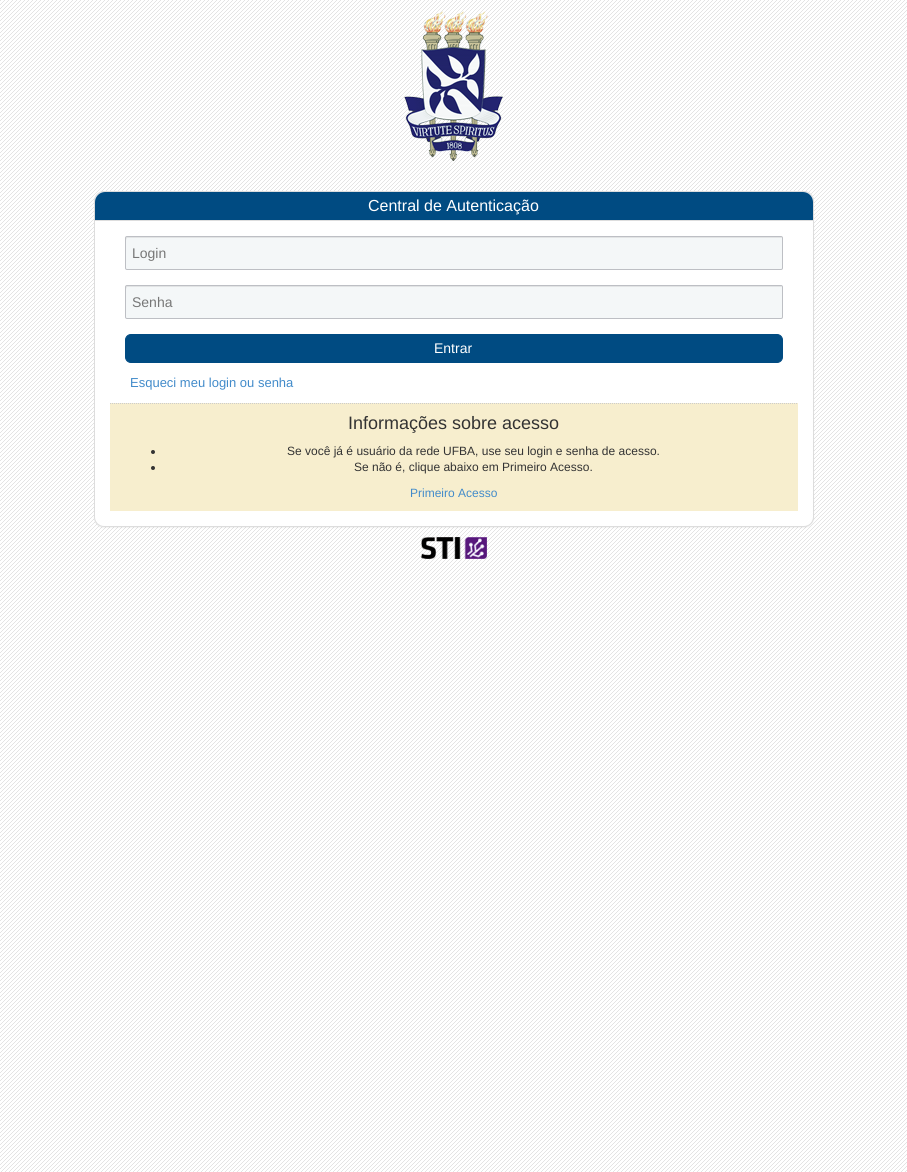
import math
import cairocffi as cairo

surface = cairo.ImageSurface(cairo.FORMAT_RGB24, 907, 1172)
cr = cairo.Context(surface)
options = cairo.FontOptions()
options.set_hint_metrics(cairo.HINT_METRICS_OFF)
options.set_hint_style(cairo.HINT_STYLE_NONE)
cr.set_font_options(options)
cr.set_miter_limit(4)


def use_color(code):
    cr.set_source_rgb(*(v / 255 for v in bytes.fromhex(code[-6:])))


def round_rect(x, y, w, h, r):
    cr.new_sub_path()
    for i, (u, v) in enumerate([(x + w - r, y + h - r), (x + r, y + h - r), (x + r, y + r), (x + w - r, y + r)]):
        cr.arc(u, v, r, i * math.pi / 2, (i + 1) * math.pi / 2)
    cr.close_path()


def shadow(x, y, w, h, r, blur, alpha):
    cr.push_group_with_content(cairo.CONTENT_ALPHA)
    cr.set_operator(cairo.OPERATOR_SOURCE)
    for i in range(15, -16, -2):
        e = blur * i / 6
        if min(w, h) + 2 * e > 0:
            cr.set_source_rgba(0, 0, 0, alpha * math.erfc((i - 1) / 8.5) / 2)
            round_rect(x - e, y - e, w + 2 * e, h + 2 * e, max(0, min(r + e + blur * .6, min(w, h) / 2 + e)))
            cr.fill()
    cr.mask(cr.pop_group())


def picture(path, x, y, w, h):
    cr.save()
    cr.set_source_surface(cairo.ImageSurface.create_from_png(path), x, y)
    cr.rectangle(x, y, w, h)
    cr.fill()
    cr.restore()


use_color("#ffffff")
cr.paint()
picture("img1.png", 0, 0, 907, 1172)
picture("img2.png", 404, 11, 99, 150)
use_color("#000000")
shadow(94, 192, 720, 336, 10, 0.5, 0.05)
use_color("#ffffff")
round_rect(94.5, 191.5, 719, 335, 9.5)
cr.fill_preserve()
use_color("#dddddd")
cr.set_line_width(1)
cr.stroke()
use_color("#004b82")
cr.new_path()
cr.move_to(105, 192)
cr.line_to(803, 192)
cr.curve_to(808.5, 192, 813, 196.5, 813, 202)
cr.line_to(813, 221)
cr.line_to(95, 221)
cr.line_to(95, 202)
cr.curve_to(95, 196.5, 99.5, 192, 105, 192)
cr.close_path()
cr.fill()
use_color("#dddddd")
cr.rectangle(95, 220, 718, 1)
cr.fill()
cr.select_font_face("Liberation Sans")
cr.set_font_size(16)
use_color("#ffffff")
cr.move_to(368, 211)
cr.show_text("Central de Autenticação")
use_color("#f4f7f8")
round_rect(125, 236, 658, 34, 2)
cr.fill()
use_color("#e2e4e5")
cr.new_path()
cr.move_to(127, 238)
cr.line_to(782, 238)
cr.line_to(781, 237)
cr.line_to(126, 237)
cr.line_to(126, 240)
cr.close_path()
cr.fill()
round_rect(125.5, 236.5, 657, 33, 1.5)
use_color("#bdbfc4")
cr.stroke()
cr.set_font_size(14)
use_color("#777777")
cr.move_to(132, 258)
cr.show_text("Login")
use_color("#f4f7f8")
round_rect(125, 285, 658, 34, 2)
cr.fill()
use_color("#e2e4e5")
cr.new_path()
cr.move_to(127, 287)
cr.line_to(782, 287)
cr.line_to(781, 286)
cr.line_to(126, 286)
cr.line_to(126, 289)
cr.close_path()
cr.fill()
round_rect(125.5, 285.5, 657, 33, 1.5)
use_color("#bdbfc4")
cr.stroke()
use_color("#777777")
cr.move_to(132, 307)
cr.show_text("Senha")
use_color("#004b82")
round_rect(125.5, 334.5, 657, 28, 5.5)
cr.fill_preserve()
cr.stroke()
use_color("#ffffff")
cr.move_to(434, 353)
cr.show_text("Entrar")
cr.set_font_size(13)
use_color("#428bca")
cr.move_to(130, 387)
cr.show_text("Esqueci meu login ou senha")
use_color("#f7eece")
cr.rectangle(110, 403, 688, 108)
cr.fill()
cr.new_path()
cr.move_to(110, 403.5)
cr.line_to(798, 403.5)
use_color("#cccccc")
cr.set_dash([1, 1])
cr.stroke()
cr.set_font_size(18)
use_color("#333333")
cr.move_to(348, 429)
cr.show_text("Informações sobre acesso")
cr.new_path()
cr.arc(153, 452, 2, 0, 2 * math.pi)
cr.fill()
cr.set_font_size(12)
cr.move_to(287, 455)
cr.show_text("Se você já é usuário da rede UFBA, use seu login e senha de acesso.")
cr.new_path()
cr.arc(153, 468, 2, 0, 2 * math.pi)
cr.fill()
cr.move_to(354, 471)
cr.show_text("Se não é, clique abaixo em Primeiro Acesso.")
use_color("#428bca")
cr.move_to(410, 497)
cr.show_text("Primeiro Acesso")
picture("img3.png", 421, 537, 66, 22)
surface.write_to_png("result.png")
